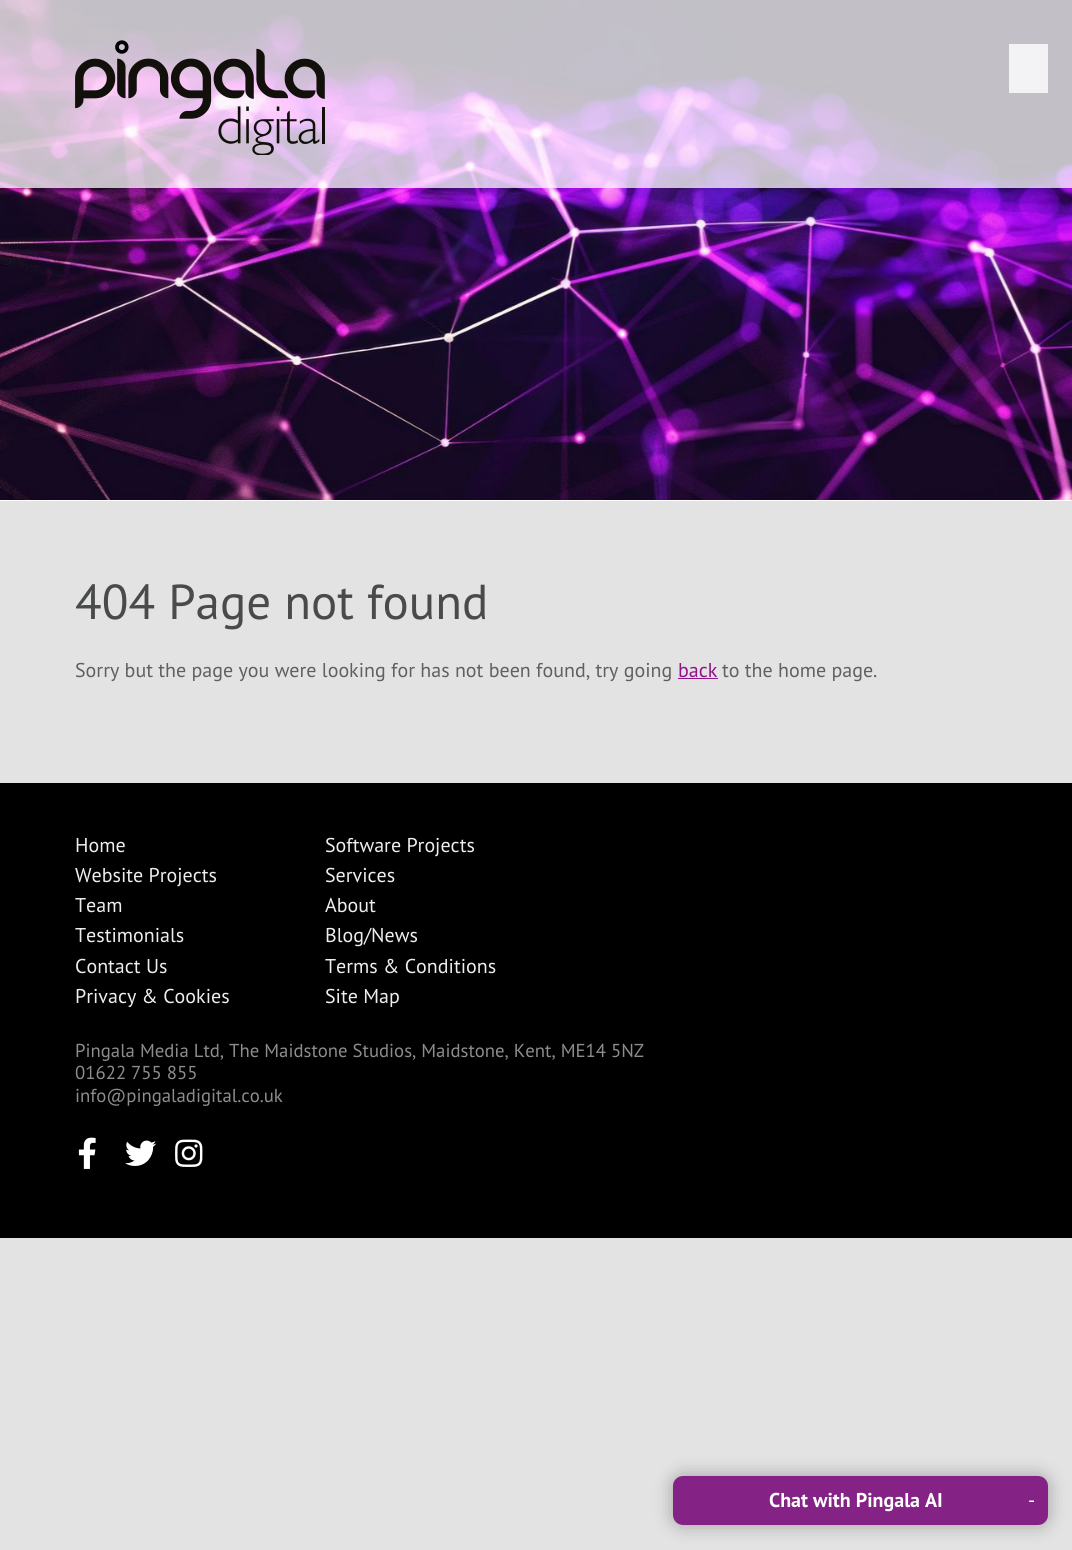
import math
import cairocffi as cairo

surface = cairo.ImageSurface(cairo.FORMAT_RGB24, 1072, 1550)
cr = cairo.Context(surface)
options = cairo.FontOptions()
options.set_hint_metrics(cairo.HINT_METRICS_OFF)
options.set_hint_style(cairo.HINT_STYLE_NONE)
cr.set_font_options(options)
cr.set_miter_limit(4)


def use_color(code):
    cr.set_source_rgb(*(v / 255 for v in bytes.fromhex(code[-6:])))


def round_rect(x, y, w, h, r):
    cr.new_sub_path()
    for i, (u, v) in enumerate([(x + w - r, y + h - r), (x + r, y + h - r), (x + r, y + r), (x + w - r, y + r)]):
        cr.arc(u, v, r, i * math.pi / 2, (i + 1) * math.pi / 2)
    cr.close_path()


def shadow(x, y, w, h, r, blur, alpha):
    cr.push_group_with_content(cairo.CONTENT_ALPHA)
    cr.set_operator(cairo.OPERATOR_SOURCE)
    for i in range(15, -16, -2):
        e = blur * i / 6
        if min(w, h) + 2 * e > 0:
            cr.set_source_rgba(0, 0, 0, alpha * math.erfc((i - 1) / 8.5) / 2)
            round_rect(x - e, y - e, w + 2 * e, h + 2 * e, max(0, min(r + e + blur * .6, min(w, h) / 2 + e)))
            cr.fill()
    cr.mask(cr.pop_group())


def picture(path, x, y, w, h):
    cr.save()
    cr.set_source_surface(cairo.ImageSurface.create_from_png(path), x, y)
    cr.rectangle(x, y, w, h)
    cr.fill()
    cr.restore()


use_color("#e3e3e3")
cr.paint()
use_color("#ffffff")
cr.rectangle(0, 500, 1072, 1)
cr.fill()
picture("img1.png", 0, 0, 1072, 500)
cr.set_source_rgba(1, 1, 1, 0.74)
cr.rectangle(0, 0, 1072, 188)
cr.fill()
picture("img2.png", 75, 40, 250, 115)
use_color("#f3f2f4")
cr.rectangle(1009, 44, 39, 49)
cr.fill()
cr.select_font_face("PT Sans")
cr.set_font_size(49)
use_color("#494a4a")
cr.move_to(75, 619)
cr.show_text("404 Page not found")
cr.set_font_size(20)
use_color("#606060")
cr.move_to(75, 677)
cr.show_text("Sorry but the page you were looking for has not been found, try going")
use_color("#901389")
cr.move_to(678, 677)
cr.show_text("back")
cr.rectangle(678, 678, 40, 1)
cr.fill()
use_color("#606060")
cr.move_to(722, 677)
cr.show_text("to the home page.")
use_color("#000000")
cr.rectangle(0, 783, 1072, 455)
cr.fill()
use_color("#eeeeee")
cr.move_to(75, 852)
cr.show_text("Home")
cr.move_to(325, 852)
cr.show_text("Software Projects")
cr.move_to(75, 882)
cr.show_text("Website Projects")
cr.move_to(325, 882)
cr.show_text("Services")
cr.move_to(75, 912)
cr.show_text("Team")
cr.move_to(325, 912)
cr.show_text("About")
cr.move_to(75, 942)
cr.show_text("Testimonials")
cr.move_to(325, 942)
cr.show_text("Blog/News")
cr.move_to(75, 973)
cr.show_text("Contact Us")
cr.move_to(325, 973)
cr.show_text("Terms & Conditions")
cr.move_to(75, 1003)
cr.show_text("Privacy & Cookies")
cr.move_to(325, 1003)
cr.show_text("Site Map")
cr.set_font_size(18.75)
use_color("#8d8d8d")
cr.move_to(75, 1057)
cr.show_text("Pingala Media Ltd, The Maidstone Studios, Maidstone, Kent, ME14 5NZ")
cr.move_to(75, 1079)
cr.show_text("01622 755 855")
cr.move_to(75, 1102)
cr.show_text("info@pingaladigital.co.uk")
picture("img3.png", 78, 1137, 18, 32)
picture("img4.png", 125, 1140, 32, 26)
picture("img5.png", 175, 1139, 28, 28)
use_color("#000000")
shadow(673, 1476, 375, 49, 10, 9.5, 0.3)
use_color("#842285")
round_rect(673, 1476, 375, 49, 10)
cr.fill()
cr.select_font_face("PT Sans", cairo.FONT_SLANT_NORMAL, cairo.FONT_WEIGHT_BOLD)
cr.set_font_size(20)
use_color("#ffffff")
cr.move_to(769, 1507)
cr.show_text("Chat with Pingala AI")
cr.select_font_face("PT Sans")
cr.move_to(1028, 1507)
cr.show_text("-")
surface.write_to_png("result.png")
